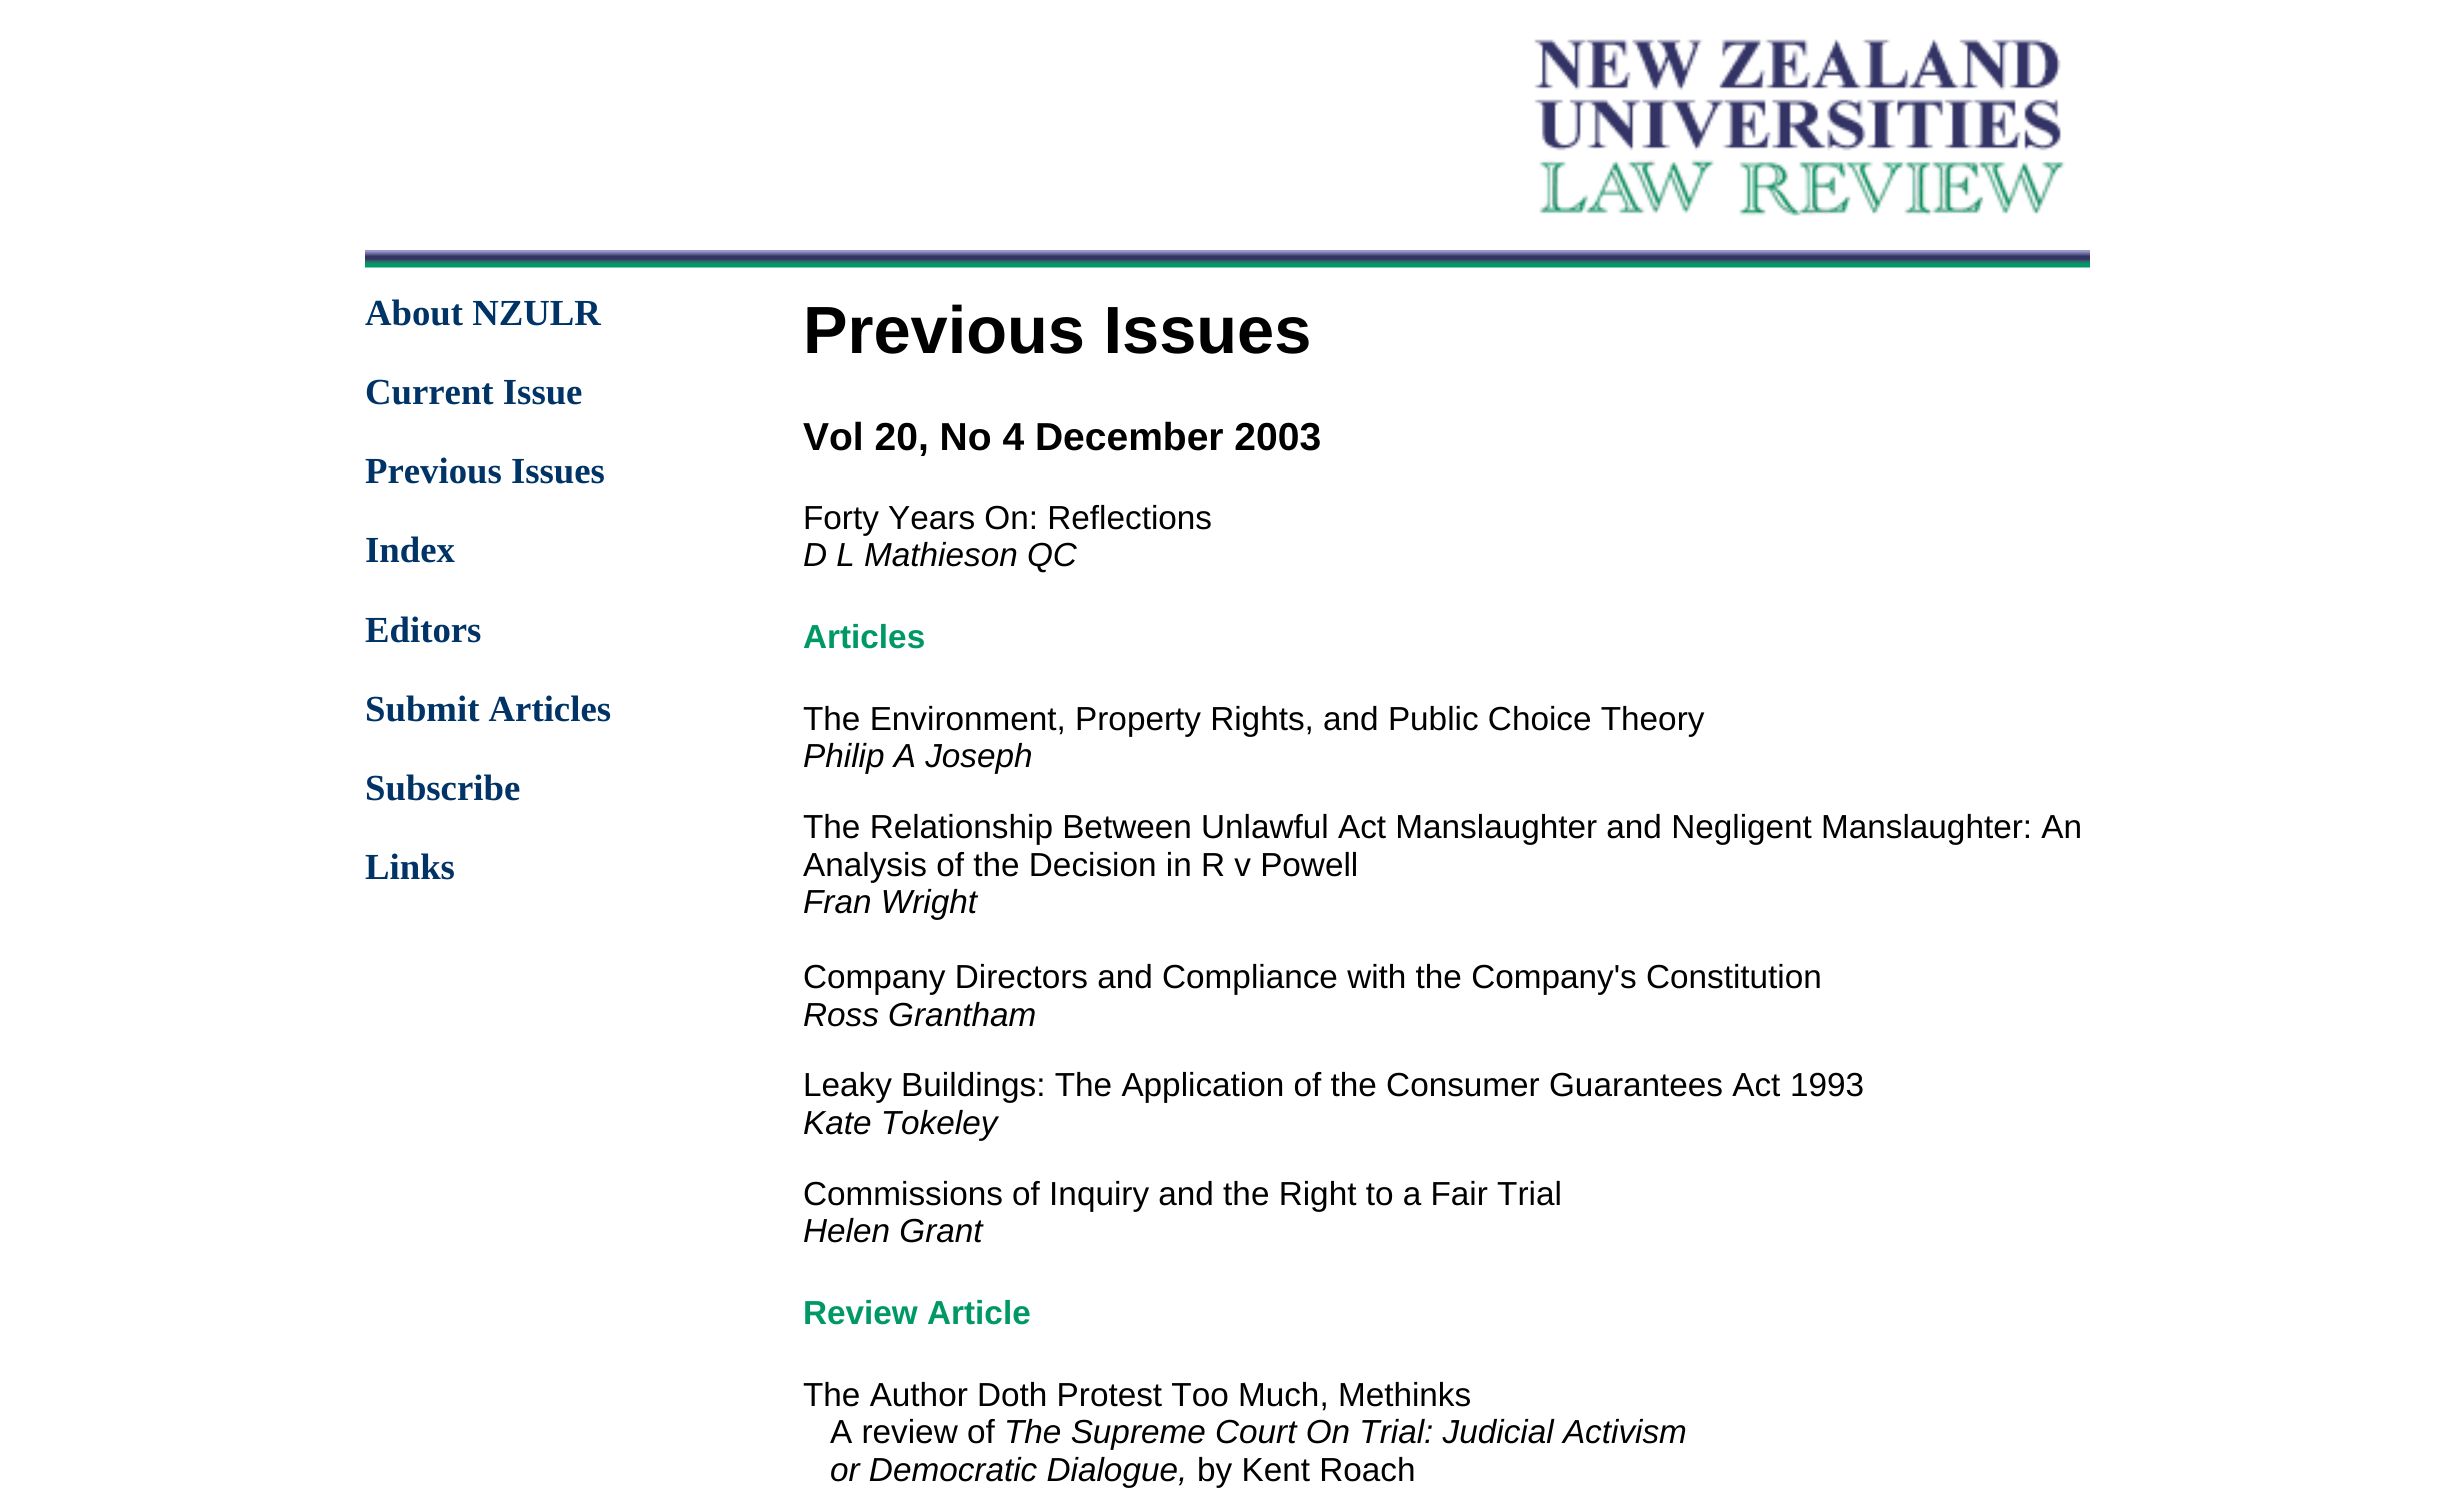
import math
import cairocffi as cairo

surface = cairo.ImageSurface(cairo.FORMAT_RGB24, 2454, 1496)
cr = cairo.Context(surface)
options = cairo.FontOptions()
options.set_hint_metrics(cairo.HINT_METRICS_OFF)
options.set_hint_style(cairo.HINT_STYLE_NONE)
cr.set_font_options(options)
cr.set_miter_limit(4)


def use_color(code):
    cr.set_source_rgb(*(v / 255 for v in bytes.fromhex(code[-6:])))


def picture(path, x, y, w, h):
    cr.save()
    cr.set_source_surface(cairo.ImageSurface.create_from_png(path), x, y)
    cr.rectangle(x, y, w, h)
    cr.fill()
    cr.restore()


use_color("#ffffff")
cr.paint()
picture("img1.png", 1534, 39, 532, 177)
picture("img2.png", 365, 250, 1725, 18)
cr.select_font_face("Liberation Serif", cairo.FONT_SLANT_NORMAL, cairo.FONT_WEIGHT_BOLD)
cr.set_font_size(36.75)
use_color("#003366")
cr.move_to(365, 325)
cr.show_text("About NZULR")
cr.move_to(365, 404)
cr.show_text("Current Issue")
cr.move_to(365, 483)
cr.show_text("Previous Issues")
cr.move_to(365, 562)
cr.show_text("Index")
cr.move_to(365, 642)
cr.show_text("Editors")
cr.move_to(365, 721)
cr.show_text("Submit Articles")
cr.move_to(365, 800)
cr.show_text("Subscribe")
cr.move_to(365, 879)
cr.show_text("Links")
cr.select_font_face("Liberation Sans", cairo.FONT_SLANT_NORMAL, cairo.FONT_WEIGHT_BOLD)
cr.set_font_size(66.75)
use_color("#000000")
cr.move_to(803, 353)
cr.show_text("Previous Issues")
cr.set_font_size(39)
cr.move_to(803, 450)
cr.show_text("Vol 20, No 4 December 2003")
cr.select_font_face("Liberation Sans")
cr.set_font_size(33.3)
cr.move_to(803, 529)
cr.show_text("Forty Years On: Reflections")
cr.select_font_face("Liberation Sans", cairo.FONT_SLANT_ITALIC)
cr.move_to(803, 566)
cr.show_text("D L Mathieson QC")
cr.select_font_face("Liberation Sans", cairo.FONT_SLANT_NORMAL, cairo.FONT_WEIGHT_BOLD)
use_color("#009966")
cr.move_to(803, 648)
cr.show_text("Articles")
cr.select_font_face("Liberation Sans")
use_color("#000000")
cr.move_to(803, 730)
cr.show_text("The Environment, Property Rights, and Public Choice Theory")
cr.select_font_face("Liberation Sans", cairo.FONT_SLANT_ITALIC)
cr.move_to(803, 767)
cr.show_text("Philip A Joseph")
cr.select_font_face("Liberation Sans")
cr.move_to(803, 838)
cr.show_text("The Relationship Between Unlawful Act Manslaughter and Negligent")
cr.move_to(1821, 838)
cr.show_text("Manslaughter: An")
cr.move_to(803, 876)
cr.show_text("Analysis of the Decision in R v Powell")
cr.select_font_face("Liberation Sans", cairo.FONT_SLANT_ITALIC)
cr.move_to(803, 913)
cr.show_text("Fran Wright")
cr.select_font_face("Liberation Sans")
cr.move_to(803, 988)
cr.show_text("Company Directors and Compliance with the Company's Constitution")
cr.select_font_face("Liberation Sans", cairo.FONT_SLANT_ITALIC)
cr.move_to(803, 1026)
cr.show_text("Ross Grantham")
cr.select_font_face("Liberation Sans")
cr.move_to(803, 1096)
cr.show_text("Leaky Buildings: The Application of the Consumer Guarantees Act")
cr.move_to(1790, 1096)
cr.show_text("1993")
cr.select_font_face("Liberation Sans", cairo.FONT_SLANT_ITALIC)
cr.move_to(803, 1134)
cr.show_text("Kate Tokeley")
cr.select_font_face("Liberation Sans")
cr.move_to(803, 1205)
cr.show_text("Commissions of Inquiry and the Right to a Fair Trial")
cr.select_font_face("Liberation Sans", cairo.FONT_SLANT_ITALIC)
cr.move_to(803, 1242)
cr.show_text("Helen Grant")
cr.select_font_face("Liberation Sans", cairo.FONT_SLANT_NORMAL, cairo.FONT_WEIGHT_BOLD)
use_color("#009966")
cr.move_to(803, 1324)
cr.show_text("Review Article")
cr.select_font_face("Liberation Sans")
use_color("#000000")
cr.move_to(803, 1406)
cr.show_text("The Author Doth Protest Too Much, Methinks")
cr.move_to(830, 1443)
cr.show_text("A review of")
cr.select_font_face("Liberation Sans", cairo.FONT_SLANT_ITALIC)
cr.move_to(1004, 1443)
cr.show_text("The Supreme Court On Trial: Judicial Activism")
cr.move_to(830, 1481)
cr.show_text("or Democratic Dialogue,")
cr.select_font_face("Liberation Sans")
cr.move_to(1197, 1481)
cr.show_text("by Kent Roach")
surface.write_to_png("result.png")
